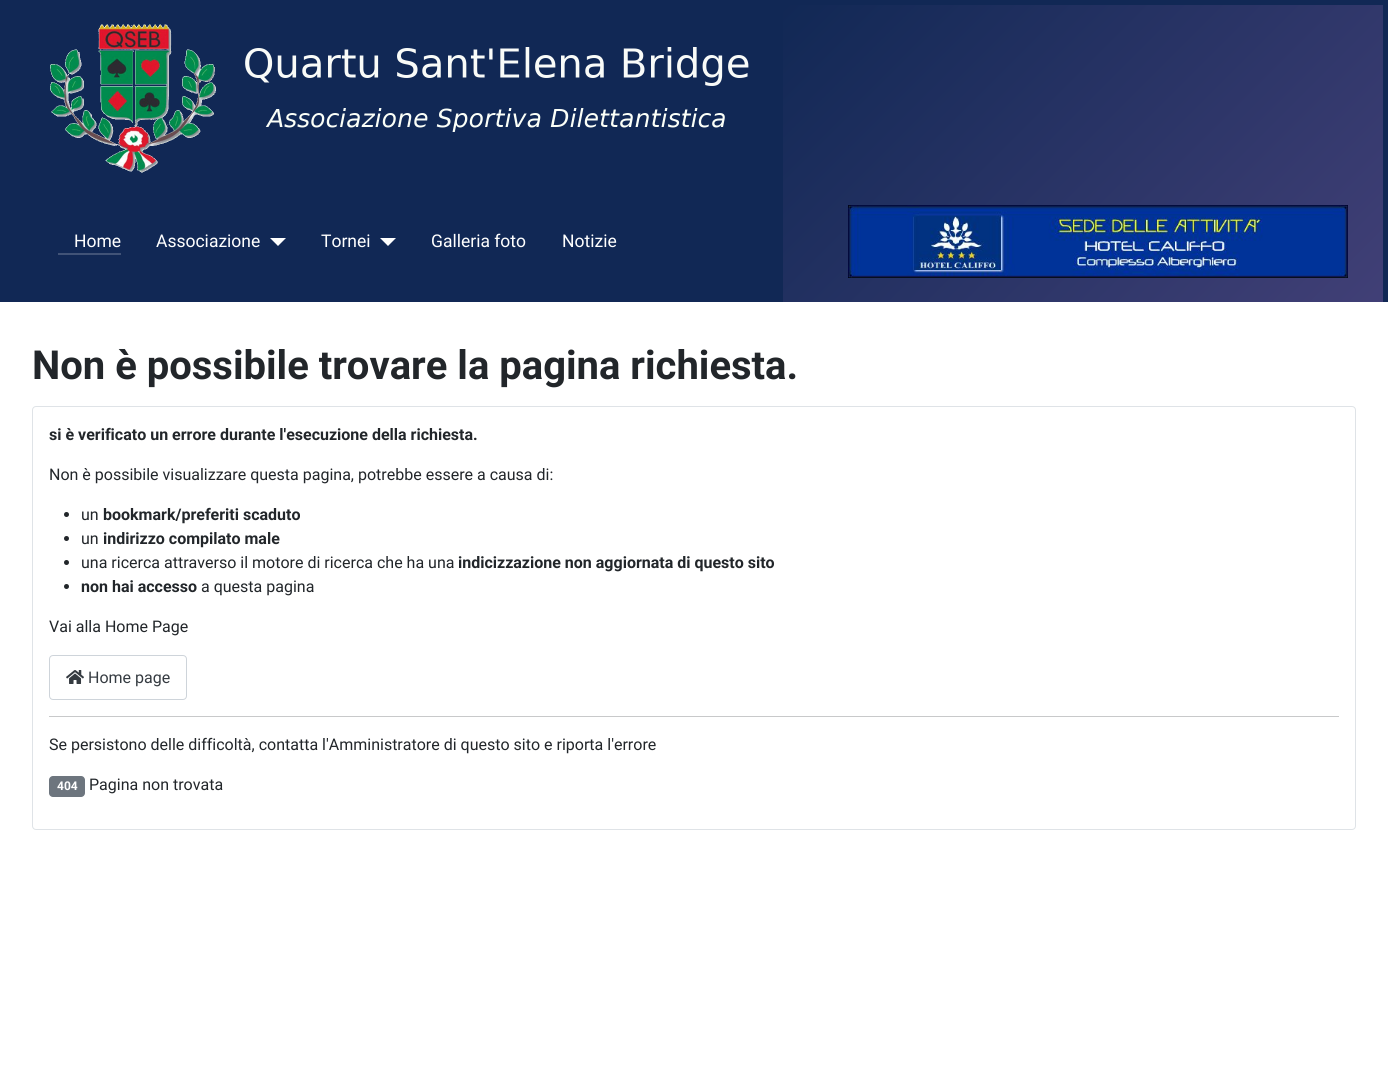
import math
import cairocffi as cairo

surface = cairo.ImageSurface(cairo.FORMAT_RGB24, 1388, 1092)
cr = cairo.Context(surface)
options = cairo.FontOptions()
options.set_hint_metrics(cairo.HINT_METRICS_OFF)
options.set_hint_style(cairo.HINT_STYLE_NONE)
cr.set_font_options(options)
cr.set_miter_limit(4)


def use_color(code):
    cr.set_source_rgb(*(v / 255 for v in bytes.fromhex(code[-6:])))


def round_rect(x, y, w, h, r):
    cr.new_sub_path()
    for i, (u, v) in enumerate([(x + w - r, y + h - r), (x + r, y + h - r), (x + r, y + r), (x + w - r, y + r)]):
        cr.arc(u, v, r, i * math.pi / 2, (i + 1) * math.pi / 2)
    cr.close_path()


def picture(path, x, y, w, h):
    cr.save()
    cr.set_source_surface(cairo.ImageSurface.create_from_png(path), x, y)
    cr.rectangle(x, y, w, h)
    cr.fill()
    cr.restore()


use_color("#ffffff")
cr.paint()
use_color("#112855")
cr.rectangle(0, 0, 1388, 302)
cr.fill()
gradient = cairo.LinearGradient(853, -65, 1313, 395)
gradient.add_color_stop_rgba(0, 0.067, 0.157, 0.333, 1)
gradient.add_color_stop_rgba(1, 0.259, 0.251, 0.467, 1)
cr.set_source(gradient)
cr.rectangle(783, 5, 600, 297)
cr.fill()
picture("img1.png", 50, 24, 699, 149)
cr.select_font_face("Roboto")
cr.set_font_size(17.5)
use_color("#ffffff")
cr.move_to(74, 247)
cr.show_text("Home")
use_color("#415377")
cr.rectangle(58, 253, 63, 2)
cr.fill()
use_color("#ffffff")
cr.move_to(156, 247)
cr.show_text("Associazione")
cr.new_path()
cr.move_to(270, 238)
cr.line_to(286, 238)
cr.line_to(278, 246)
cr.close_path()
cr.fill()
cr.move_to(321, 247)
cr.show_text("Tornei")
cr.new_path()
cr.move_to(380, 238)
cr.line_to(396, 238)
cr.line_to(388, 246)
cr.close_path()
cr.fill()
cr.move_to(431, 247)
cr.show_text("Galleria foto")
cr.move_to(562, 247)
cr.show_text("Notizie")
picture("img2.png", 848, 205, 500, 73)
cr.select_font_face("Roboto", cairo.FONT_SLANT_NORMAL, cairo.FONT_WEIGHT_BOLD)
cr.set_font_size(40)
use_color("#22262a")
cr.move_to(32, 379)
cr.show_text("Non è possibile trovare la pagina richiesta.")
round_rect(32.5, 406.5, 1323, 423, 3.5)
use_color("#dfe3e7")
cr.set_line_width(1)
cr.stroke()
cr.set_font_size(16)
use_color("#22262a")
cr.move_to(49, 440)
cr.show_text("si è verificato un errore durante l'esecuzione della richiesta.")
cr.select_font_face("Roboto")
cr.move_to(49, 480)
cr.show_text("Non è possibile visualizzare questa pagina, potrebbe essere a causa di:")
cr.new_path()
cr.arc(66.5, 514.5, 2.5, 0, 2 * math.pi)
cr.fill()
cr.move_to(81, 520)
cr.show_text("un")
cr.select_font_face("Roboto", cairo.FONT_SLANT_NORMAL, cairo.FONT_WEIGHT_BOLD)
cr.move_to(103, 520)
cr.show_text("bookmark/preferiti scaduto")
cr.new_path()
cr.arc(66.5, 538.5, 2.5, 0, 2 * math.pi)
cr.fill()
cr.select_font_face("Roboto")
cr.move_to(81, 544)
cr.show_text("un")
cr.select_font_face("Roboto", cairo.FONT_SLANT_NORMAL, cairo.FONT_WEIGHT_BOLD)
cr.move_to(103, 544)
cr.show_text("indirizzo compilato male")
cr.new_path()
cr.arc(66.5, 562.5, 2.5, 0, 2 * math.pi)
cr.fill()
cr.select_font_face("Roboto")
cr.move_to(81, 568)
cr.show_text("una ricerca attraverso il motore di ricerca che ha una")
cr.select_font_face("Roboto", cairo.FONT_SLANT_NORMAL, cairo.FONT_WEIGHT_BOLD)
cr.move_to(458, 568)
cr.show_text("indicizzazione non aggiornata di questo sito")
cr.new_path()
cr.arc(66.5, 586.5, 2.5, 0, 2 * math.pi)
cr.fill()
cr.move_to(81, 592)
cr.show_text("non hai accesso")
cr.select_font_face("Roboto")
cr.move_to(201, 592)
cr.show_text("a questa pagina")
cr.move_to(49, 632)
cr.show_text("Vai alla Home Page")
round_rect(49.5, 655.5, 137, 44, 3.5)
use_color("#ced4da")
cr.stroke()
picture("img3.png", 66, 670, 18, 14)
use_color("#353b41")
cr.move_to(88, 683)
cr.show_text("Home page")
use_color("#c8c9ca")
cr.rectangle(49, 716, 1290, 1)
cr.fill()
use_color("#22262a")
cr.move_to(49, 750)
cr.show_text("Se persistono delle difficoltà, contatta l'Amministratore di questo sito e riporta l'errore")
use_color("#6d757e")
round_rect(49, 776, 36, 21, 4)
cr.fill()
cr.select_font_face("Roboto", cairo.FONT_SLANT_NORMAL, cairo.FONT_WEIGHT_BOLD)
cr.set_font_size(12)
use_color("#ffffff")
cr.move_to(57, 790)
cr.show_text("404")
cr.select_font_face("Roboto")
cr.set_font_size(16)
use_color("#22262a")
cr.move_to(89, 790)
cr.show_text("Pagina non trovata")
surface.write_to_png("result.png")
